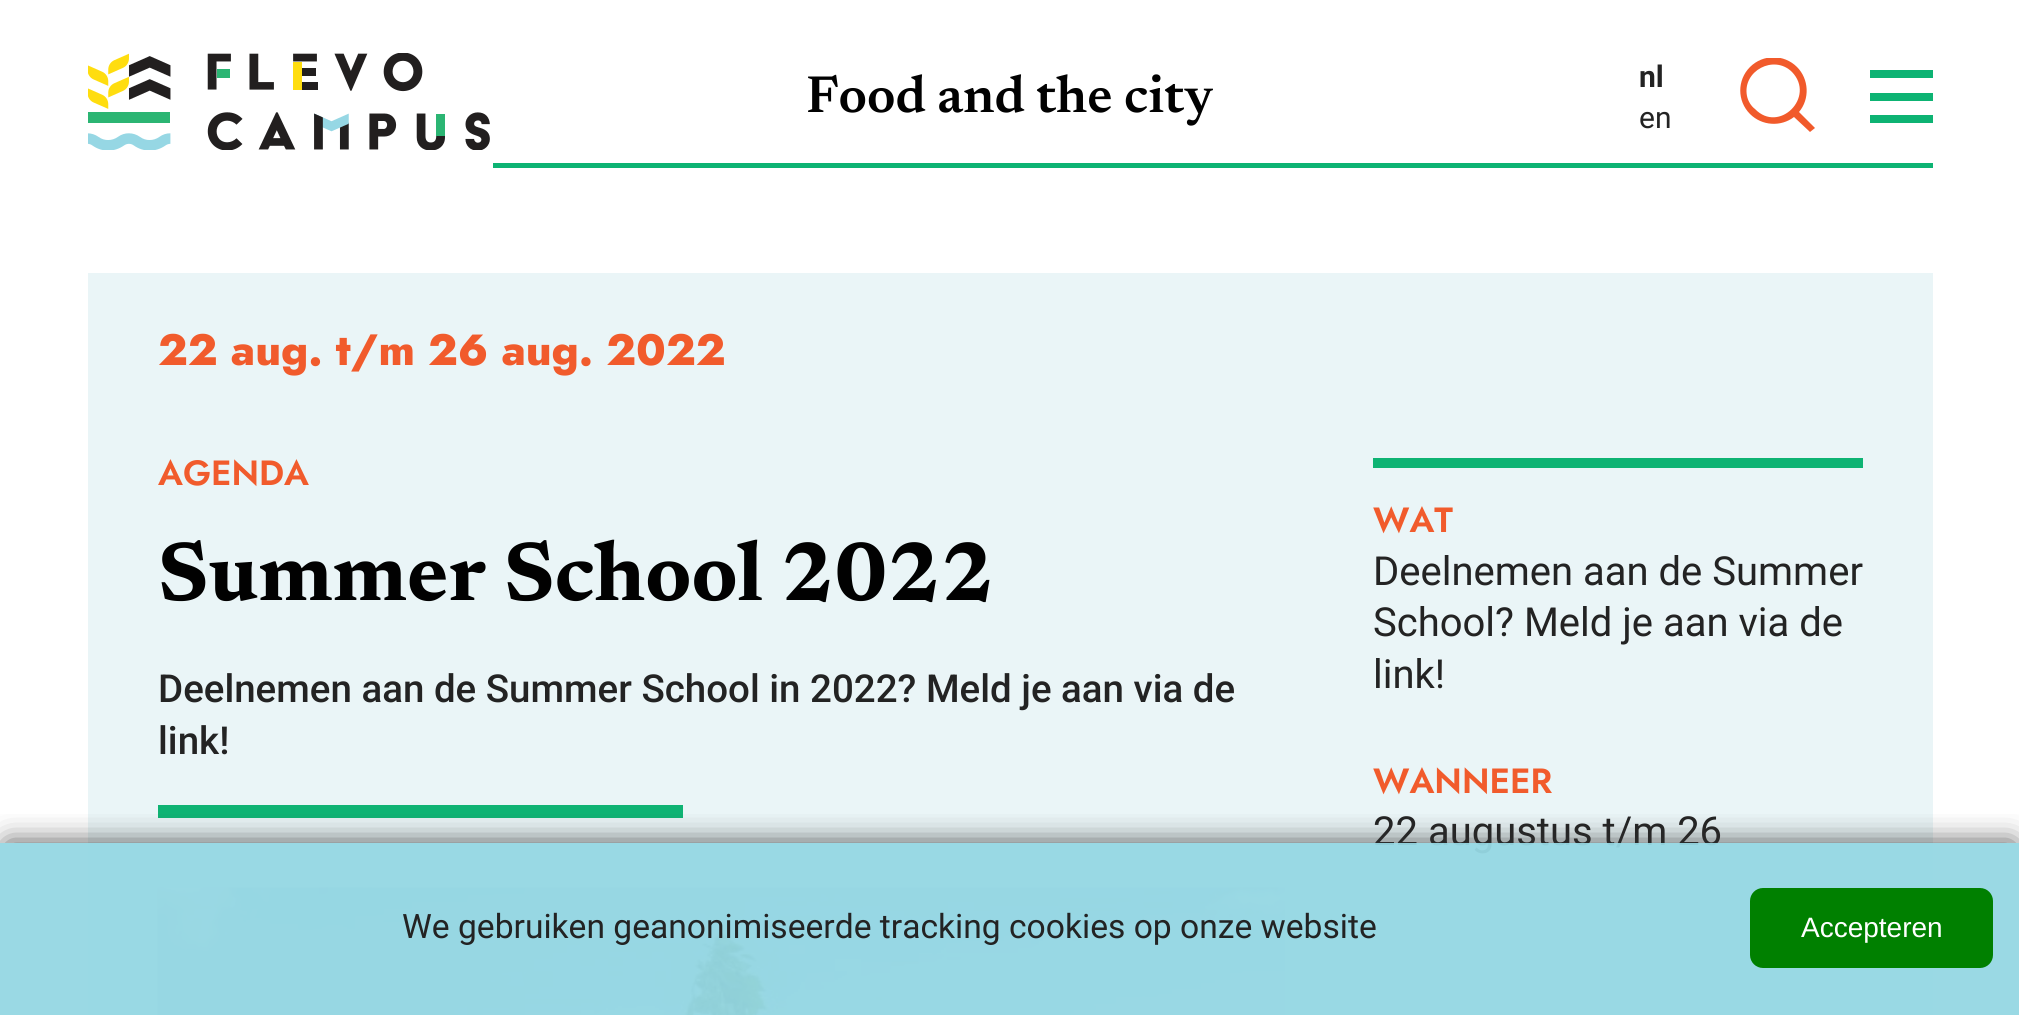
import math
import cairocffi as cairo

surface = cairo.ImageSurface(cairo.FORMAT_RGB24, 2019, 1015)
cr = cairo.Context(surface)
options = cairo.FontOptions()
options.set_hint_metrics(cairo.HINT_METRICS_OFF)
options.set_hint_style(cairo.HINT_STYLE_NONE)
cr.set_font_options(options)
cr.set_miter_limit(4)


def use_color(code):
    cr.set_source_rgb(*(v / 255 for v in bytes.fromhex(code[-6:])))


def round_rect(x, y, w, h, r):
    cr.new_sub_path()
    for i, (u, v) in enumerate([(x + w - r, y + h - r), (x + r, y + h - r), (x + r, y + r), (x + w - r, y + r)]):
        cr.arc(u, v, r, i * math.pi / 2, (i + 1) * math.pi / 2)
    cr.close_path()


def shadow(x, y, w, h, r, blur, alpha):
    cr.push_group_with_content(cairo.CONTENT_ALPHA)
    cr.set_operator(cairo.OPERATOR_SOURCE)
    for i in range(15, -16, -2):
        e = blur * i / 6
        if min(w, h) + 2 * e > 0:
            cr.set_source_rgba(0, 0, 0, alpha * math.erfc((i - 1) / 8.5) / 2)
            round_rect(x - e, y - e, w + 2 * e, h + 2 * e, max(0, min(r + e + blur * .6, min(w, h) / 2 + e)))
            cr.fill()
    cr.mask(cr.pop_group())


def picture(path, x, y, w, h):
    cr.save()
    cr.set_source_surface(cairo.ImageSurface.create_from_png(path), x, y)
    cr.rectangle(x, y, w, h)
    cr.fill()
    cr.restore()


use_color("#ffffff")
cr.paint()
cr.select_font_face("Newsreader SemiBold")
cr.set_font_size(52.5)
use_color("#010101")
cr.move_to(806, 112)
cr.show_text("Food and the city")
picture("img1.png", 88, 53, 402, 97)
use_color("#0db373")
cr.rectangle(493, 163, 1440, 5)
cr.fill()
cr.select_font_face("Roboto", cairo.FONT_SLANT_NORMAL, cairo.FONT_WEIGHT_BOLD)
cr.set_font_size(30)
use_color("#232323")
cr.move_to(1639, 87)
cr.show_text("nl")
cr.select_font_face("Roboto")
cr.move_to(1639, 128)
cr.show_text("en")
cr.save()
cr.rectangle(1740, 58, 75, 75)
cr.clip()
use_color("#f15a2b")
cr.new_path()
cr.move_to(1815, 128)
cr.line_to(1799, 112)
cr.curve_to(1810, 99, 1809, 79, 1797, 67)
cr.curve_to(1784, 54, 1763, 54, 1750, 67)
cr.curve_to(1737, 80, 1737, 101, 1750, 114)
cr.curve_to(1762, 126, 1781, 127, 1794, 117)
cr.line_to(1810, 132)
cr.close_path()
cr.move_to(1755, 109)
cr.curve_to(1751, 106, 1748, 101, 1747, 96)
cr.curve_to(1742, 71, 1774, 54, 1792, 72)
cr.curve_to(1816, 97, 1779, 134, 1755, 109)
cr.close_path()
cr.fill()
cr.restore()
use_color("#0db373")
cr.rectangle(1870, 70, 63, 8)
cr.fill()
cr.rectangle(1870, 93, 63, 8)
cr.fill()
cr.rectangle(1870, 115, 63, 8)
cr.fill()
use_color("#eaf5f7")
cr.rectangle(88, 273, 1845, 742)
cr.fill()
cr.select_font_face("Jost ExtraBold")
cr.set_font_size(43.75)
use_color("#f15b2c")
cr.move_to(158, 365)
cr.show_text("22 aug. t/m 26 aug. 2022")
cr.select_font_face("Jost SemiBold")
cr.set_font_size(35)
cr.move_to(158, 485)
cr.show_text("AGENDA")
cr.select_font_face("Newsreader", cairo.FONT_SLANT_NORMAL, cairo.FONT_WEIGHT_BOLD)
cr.set_font_size(84)
use_color("#010101")
cr.move_to(158, 600)
cr.show_text("Summer School 2022")
cr.select_font_face("Roboto Medium")
cr.set_font_size(38.5)
use_color("#232323")
cr.move_to(158, 702)
cr.show_text("Deelnemen aan de Summer School in 2022? Meld je aan via de")
cr.move_to(158, 754)
cr.show_text("link!")
use_color("#0eb373")
cr.rectangle(158, 805, 525, 13)
cr.fill()
picture("img2.png", 157, 887, 1128, 128)
cr.rectangle(1373, 458, 490, 10)
cr.fill()
cr.select_font_face("Jost SemiBold")
cr.set_font_size(35)
use_color("#f15b2c")
cr.move_to(1373, 532)
cr.show_text("WAT")
cr.select_font_face("Roboto")
cr.set_font_size(40)
use_color("#232323")
cr.move_to(1373, 585)
cr.show_text("Deelnemen aan de Summer")
cr.move_to(1373, 636)
cr.show_text("School? Meld je aan via de")
cr.move_to(1373, 688)
cr.show_text("link!")
cr.select_font_face("Jost SemiBold")
cr.set_font_size(35)
use_color("#f15b2c")
cr.move_to(1373, 793)
cr.show_text("WANNEER")
cr.select_font_face("Roboto")
cr.set_font_size(40)
use_color("#232323")
cr.move_to(1373, 845)
cr.show_text("22 augustus t/m 26")
cr.save()
cr.rectangle(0, 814, 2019, 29)
cr.clip()
use_color("#333333")
shadow(8, 845, 2005, 158, 0, 15, 1)
cr.restore()
cr.set_source_rgba(0.584, 0.843, 0.89, 0.95)
cr.rectangle(0, 843, 2019, 172)
cr.fill()
cr.set_font_size(33.6)
use_color("#232323")
cr.move_to(402, 938)
cr.show_text("We gebruiken geanonimiseerde tracking cookies op onze website")
use_color("#008000")
round_rect(1750, 888, 243, 80, 13)
cr.fill()
cr.select_font_face("Liberation Sans")
cr.set_font_size(28)
use_color("#ffffff")
cr.move_to(1801, 937)
cr.show_text("Accepteren")
surface.write_to_png("result.png")
